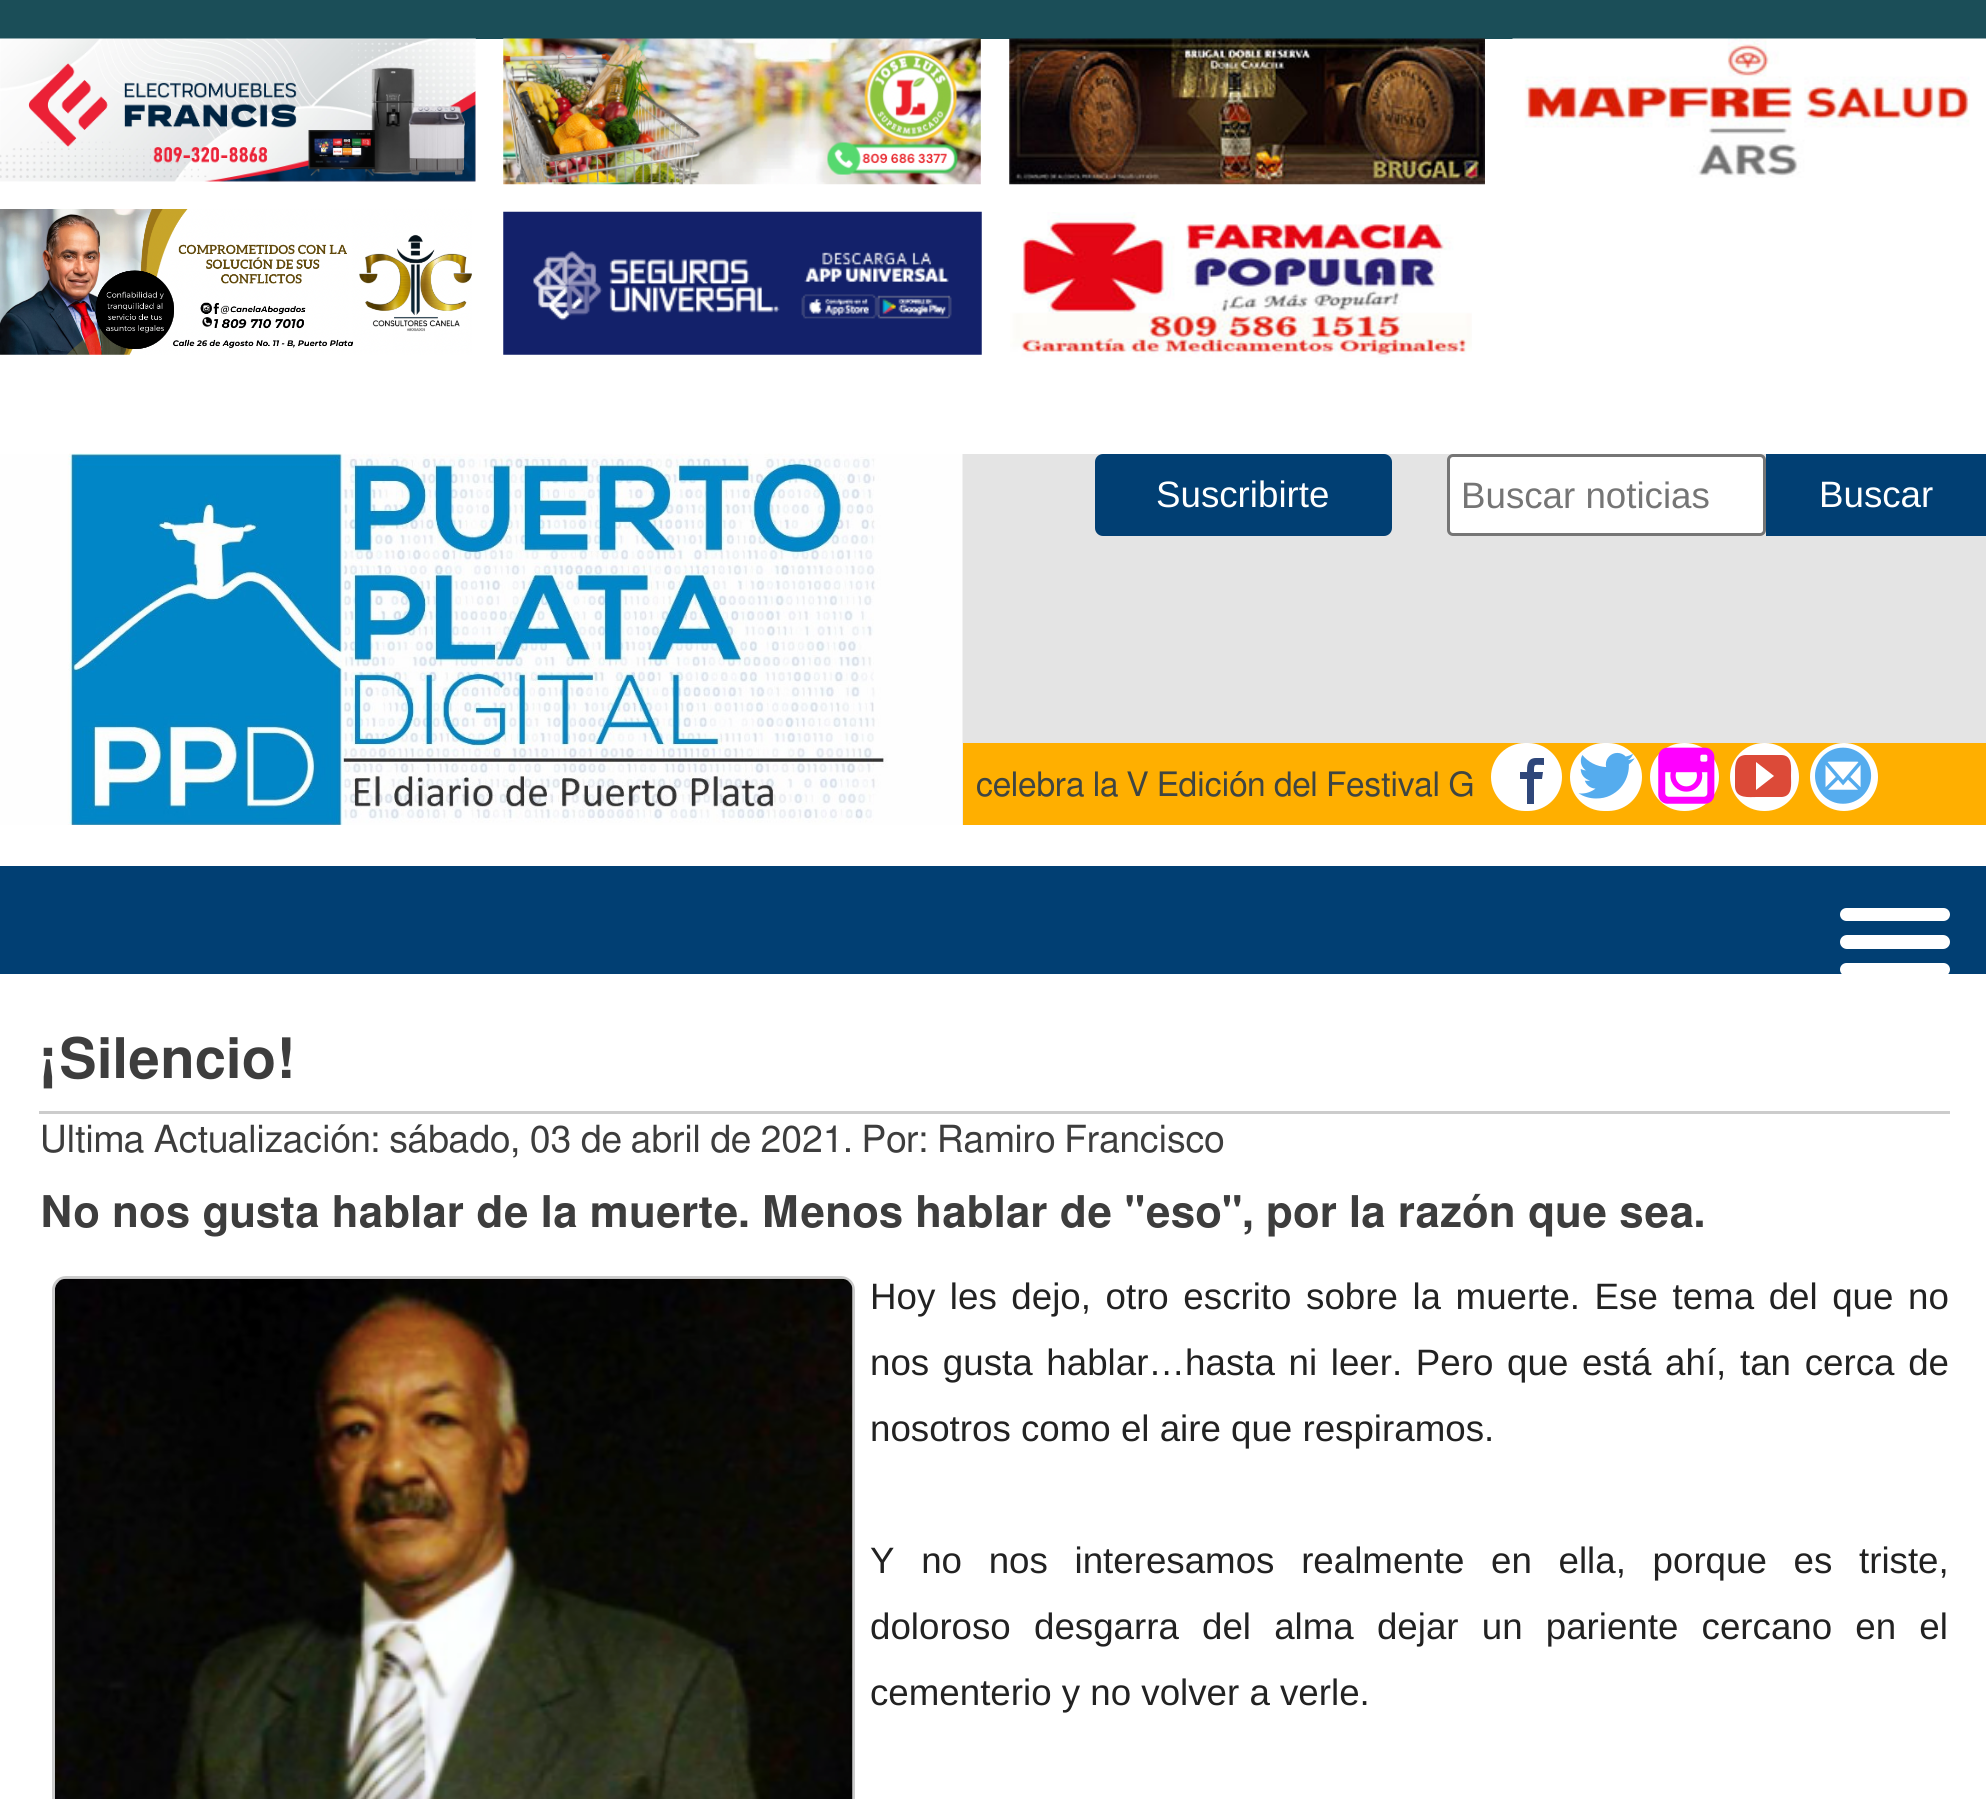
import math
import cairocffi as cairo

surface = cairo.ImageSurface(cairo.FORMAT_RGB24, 1986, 1799)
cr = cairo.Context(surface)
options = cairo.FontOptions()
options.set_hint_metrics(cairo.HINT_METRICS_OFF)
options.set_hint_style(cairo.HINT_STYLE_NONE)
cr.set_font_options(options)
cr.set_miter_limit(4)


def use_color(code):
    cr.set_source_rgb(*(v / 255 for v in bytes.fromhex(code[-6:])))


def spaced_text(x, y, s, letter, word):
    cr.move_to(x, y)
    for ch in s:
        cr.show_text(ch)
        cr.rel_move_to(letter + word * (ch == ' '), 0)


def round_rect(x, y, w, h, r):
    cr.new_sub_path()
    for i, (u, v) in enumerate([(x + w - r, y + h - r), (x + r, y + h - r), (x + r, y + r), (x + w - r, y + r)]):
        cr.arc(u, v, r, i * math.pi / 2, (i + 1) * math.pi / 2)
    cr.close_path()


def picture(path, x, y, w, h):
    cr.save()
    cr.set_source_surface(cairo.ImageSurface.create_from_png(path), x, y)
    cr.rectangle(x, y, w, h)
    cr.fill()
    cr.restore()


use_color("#ffffff")
cr.paint()
use_color("#1b4e58")
cr.rectangle(0, 0, 1986, 39)
cr.fill()
picture("img1.png", 0, 38, 476, 144)
picture("img2.png", 503, 38, 478, 147)
picture("img3.png", 1009, 38, 476, 147)
picture("img4.png", 1512, 38, 474, 140)
picture("img5.png", 0, 209, 472, 146)
picture("img6.png", 503, 211, 479, 144)
picture("img7.png", 1010, 212, 462, 146)
use_color("#e4e4e4")
cr.rectangle(962, 454, 1024, 371)
cr.fill()
picture("img8.png", 0, 453, 963, 372)
use_color("#013f73")
round_rect(1095, 454, 297, 82, 8)
cr.fill()
cr.select_font_face("Liberation Sans")
cr.set_font_size(36.7)
use_color("#ffffff")
cr.move_to(1156, 507)
cr.show_text("Suscribirte")
round_rect(1448.5, 455.5, 316, 79, 4.5)
cr.fill_preserve()
use_color("#767676")
cr.set_line_width(3)
cr.stroke()
use_color("#757575")
cr.move_to(1461, 508)
cr.show_text("Buscar noticias")
use_color("#013f73")
cr.rectangle(1766, 454, 220, 82)
cr.fill()
use_color("#ffffff")
cr.move_to(1819, 507)
cr.show_text("Buscar")
use_color("#ffaf00")
cr.rectangle(963, 743, 1023, 82)
cr.fill()
cr.select_font_face("FreeSans")
cr.set_font_size(33.7)
use_color("#3f4542")
cr.move_to(976, 796)
cr.show_text("celebra la V Edición del Festival G")
use_color("#ffffff")
round_rect(1491, 743, 71, 68, 34)
cr.fill()
round_rect(1570, 743, 72, 68, 34)
cr.fill()
round_rect(1650, 743, 69, 68, 34)
cr.fill()
round_rect(1730, 743, 69, 68, 34)
cr.fill()
cr.arc(1844, 777, 34, 0, 2 * math.pi)
cr.fill()
use_color("#2f477a")
cr.new_path()
cr.move_to(1536, 758)
cr.curve_to(1527, 758, 1527, 766, 1527, 772)
cr.line_to(1520, 772)
cr.line_to(1520, 779)
cr.line_to(1527, 779)
cr.line_to(1527, 804)
cr.line_to(1534, 804)
cr.line_to(1534, 779)
cr.line_to(1542, 779)
cr.line_to(1543, 772)
cr.line_to(1534, 772)
cr.curve_to(1534, 763, 1534, 765, 1544, 765)
cr.line_to(1544, 758)
cr.close_path()
cr.fill()
picture("img9.png", 1578, 752, 57, 47)
picture("img10.png", 1658, 747, 57, 57)
use_color("#dc4a38")
cr.new_path()
cr.move_to(1781, 755)
cr.line_to(1745, 755)
cr.curve_to(1734, 756, 1735, 768, 1735, 776)
cr.line_to(1735, 787)
cr.curve_to(1736, 799, 1749, 797, 1757, 797)
cr.line_to(1782, 797)
cr.curve_to(1793, 796, 1791, 784, 1791, 776)
cr.curve_to(1791, 768, 1793, 755, 1781, 755)
cr.close_path()
cr.move_to(1756, 790)
cr.line_to(1756, 762)
cr.line_to(1774, 776)
cr.close_path()
cr.fill()
picture("img11.png", 1815, 747, 57, 57)
use_color("#013f73")
cr.rectangle(0, 866, 1986, 108)
cr.fill()
use_color("#ffffff")
round_rect(1840, 908, 110, 13, 6.5)
cr.fill()
round_rect(1840, 935, 110, 14, 7)
cr.fill()
round_rect(1840, 963, 110, 13, 6.5)
cr.fill()
use_color("#cccccc")
cr.rectangle(39, 1111, 1911, 3)
cr.fill()
cr.select_font_face("FreeSans SemiBold")
cr.set_font_size(56)
use_color("#3d3d3d")
cr.move_to(40, 1078)
cr.show_text("¡Silencio!")
cr.select_font_face("FreeSans")
cr.set_font_size(37.4)
cr.move_to(40, 1152)
cr.show_text("Ultima Actualización: sábado, 03 de abril de 2021")
cr.move_to(843, 1152)
cr.show_text(". Por: Ramiro Francisco")
cr.select_font_face("FreeSans SemiBold")
cr.set_font_size(43.75)
cr.move_to(40, 1227)
cr.show_text("No nos gusta hablar de la muerte. Menos hablar de \"eso\", por la razón que sea.")
round_rect(53.5, 1277.5, 800, 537, 12.5)
use_color("#cccccc")
cr.stroke()
picture("img12.png", 55, 1278, 798, 521)
cr.select_font_face("Liberation Sans")
cr.set_font_size(36.7)
use_color("#222222")
spaced_text(870, 1309, "Hoy les dejo, otro escrito sobre la muerte. Ese tema del que no", 0, 4.4)
spaced_text(870, 1375, "nos gusta hablar…hasta ni leer. Pero que está ahí, tan cerca de", 0, 3.5)
cr.move_to(870, 1441)
cr.show_text("nosotros como el aire que respiramos.")
spaced_text(870, 1573, "Y no nos interesamos realmente en ella, porque es triste,", 0, 16.5)
spaced_text(870, 1639, "doloroso desgarra del alma dejar un pariente cercano en el", 0, 13)
cr.move_to(870, 1705)
cr.show_text("cementerio y no volver a verle.")
surface.write_to_png("result.png")
